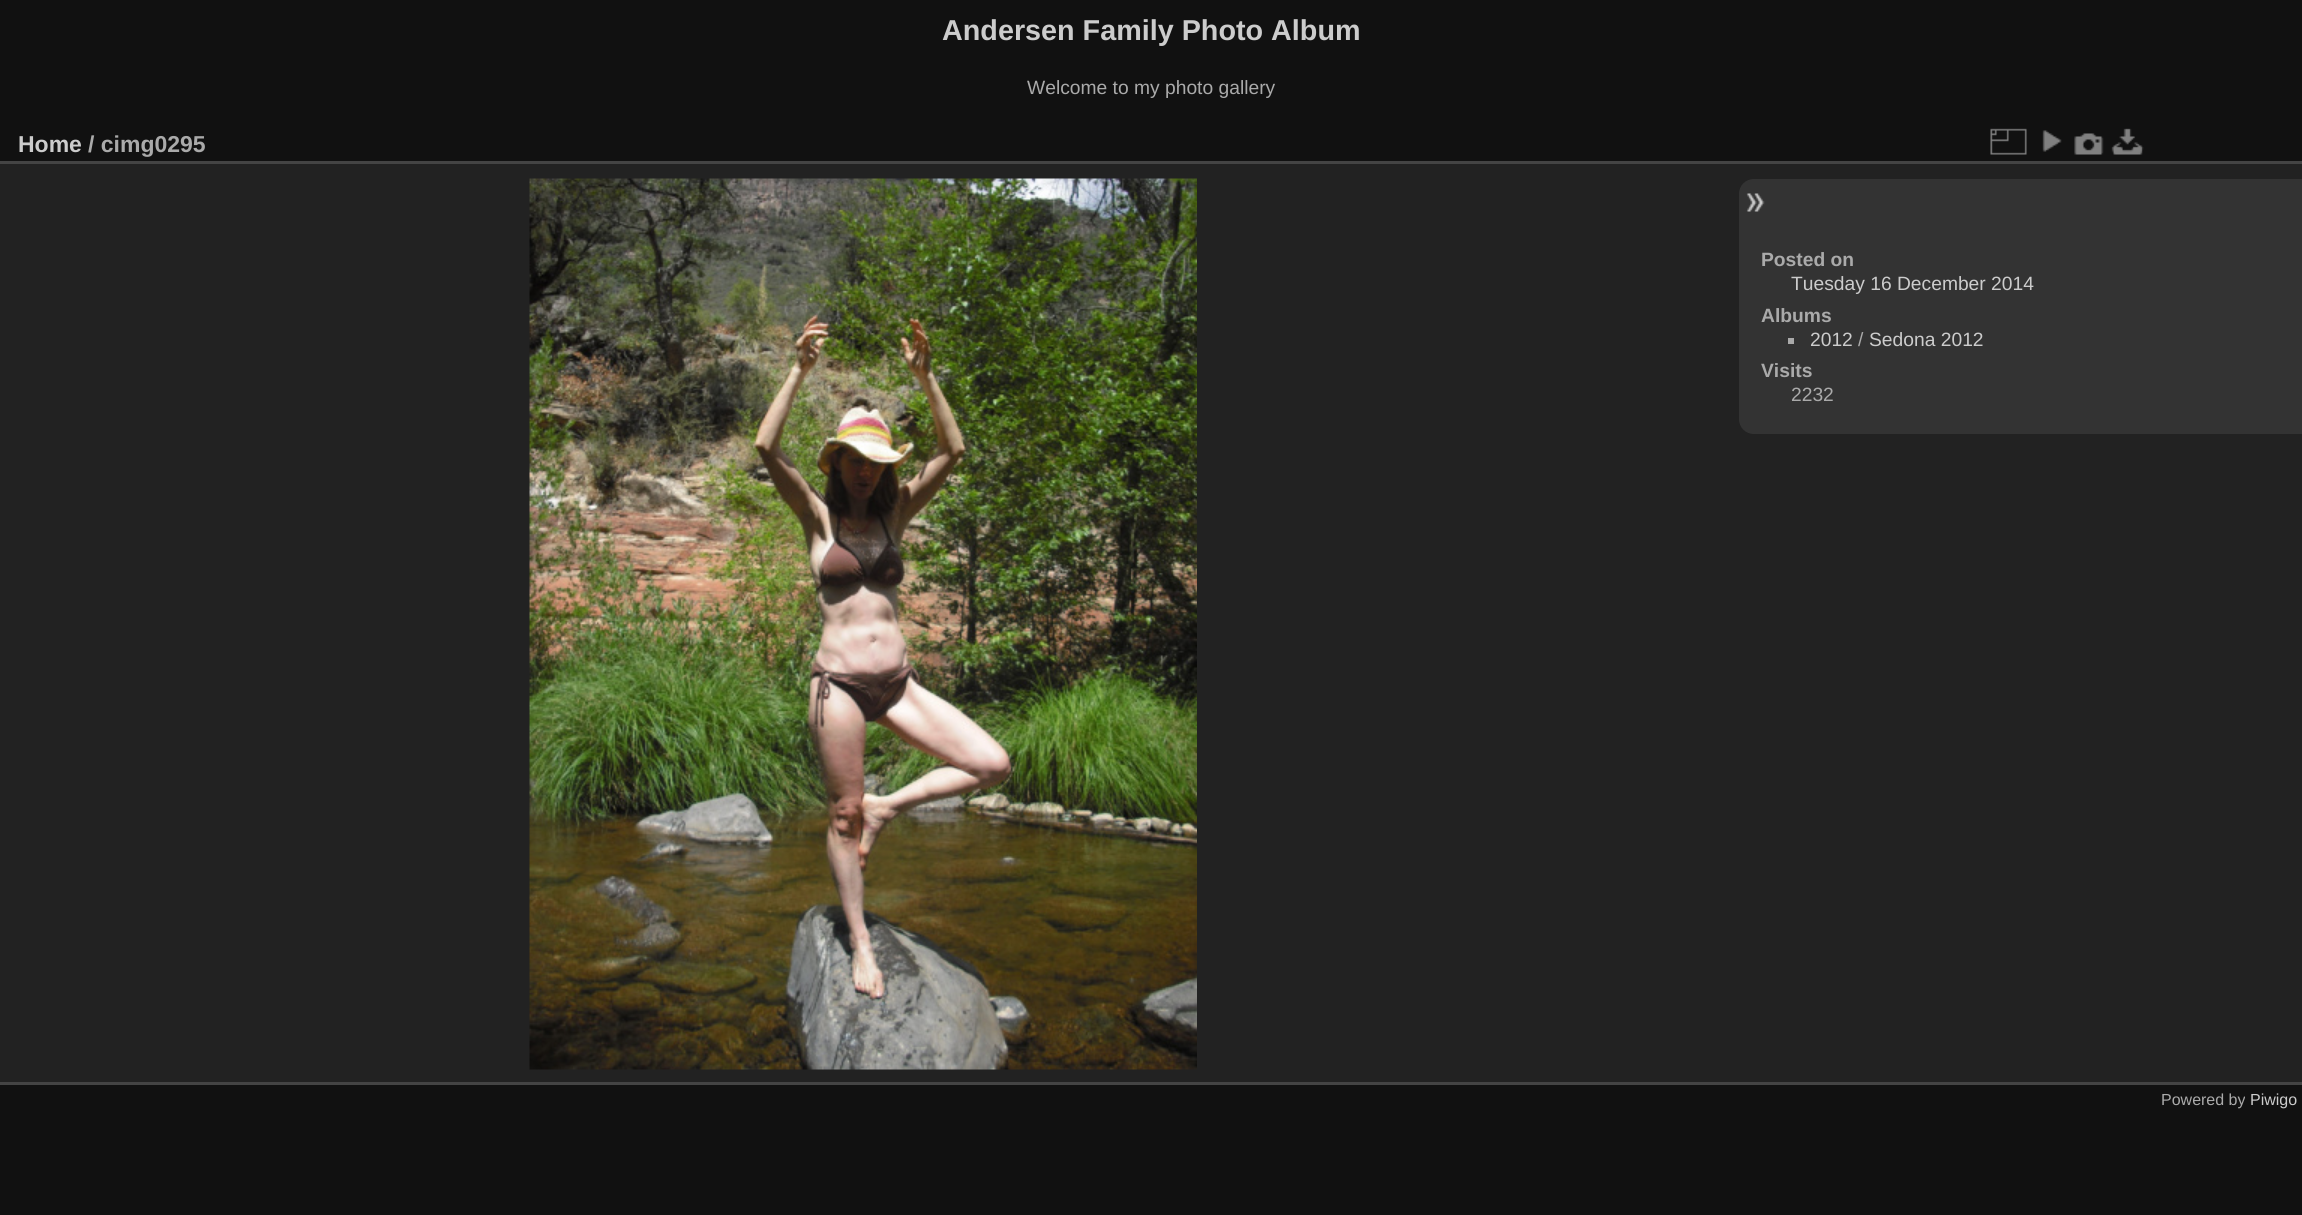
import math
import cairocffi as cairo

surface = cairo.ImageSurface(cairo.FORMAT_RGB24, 2302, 1215)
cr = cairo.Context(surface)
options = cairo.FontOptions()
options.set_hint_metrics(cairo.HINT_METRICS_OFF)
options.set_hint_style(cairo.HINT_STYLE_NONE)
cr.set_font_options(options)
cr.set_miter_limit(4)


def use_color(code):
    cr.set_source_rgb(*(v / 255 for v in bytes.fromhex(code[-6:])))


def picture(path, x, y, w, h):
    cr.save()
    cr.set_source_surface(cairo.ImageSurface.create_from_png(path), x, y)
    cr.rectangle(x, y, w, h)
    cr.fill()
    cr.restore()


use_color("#111111")
cr.paint()
cr.select_font_face("Liberation Sans", cairo.FONT_SLANT_NORMAL, cairo.FONT_WEIGHT_BOLD)
cr.set_font_size(28.75)
use_color("#cccccc")
cr.move_to(942, 40)
cr.show_text("Andersen Family Photo Album")
cr.select_font_face("Liberation Sans")
cr.set_font_size(19.25)
use_color("#aaaaaa")
cr.move_to(1027, 94)
cr.show_text("Welcome to my photo gallery")
use_color("#222222")
cr.rectangle(0, 164, 2302, 918)
cr.fill()
use_color("#444444")
cr.rectangle(0, 1082, 2302, 3)
cr.fill()
cr.rectangle(0, 161, 2302, 3)
cr.fill()
cr.select_font_face("Liberation Sans", cairo.FONT_SLANT_NORMAL, cairo.FONT_WEIGHT_BOLD)
cr.set_font_size(23)
use_color("#cccccc")
cr.move_to(18, 152)
cr.show_text("Home")
use_color("#aaaaaa")
cr.move_to(88, 152)
cr.show_text("/ cimg0295")
picture("img1.png", 1990, 128, 37, 27)
picture("img2.png", 2042, 130, 20, 22)
picture("img3.png", 2074, 133, 30, 22)
picture("img4.png", 2111, 128, 33, 27)
picture("img5.png", 529, 178, 668, 892)
use_color("#333333")
cr.new_path()
cr.move_to(1754, 179)
cr.line_to(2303, 179)
cr.line_to(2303, 434)
cr.line_to(1754, 434)
cr.curve_to(1745.5, 434, 1739, 427.5, 1739, 419)
cr.line_to(1739, 194)
cr.curve_to(1739, 185.5, 1745.5, 179, 1754, 179)
cr.close_path()
cr.fill()
picture("img6.png", 1746, 193, 19, 19)
cr.set_font_size(19.25)
use_color("#aaaaaa")
cr.move_to(1761, 266)
cr.show_text("Posted on")
cr.select_font_face("Liberation Sans")
use_color("#cccccc")
cr.move_to(1791, 290)
cr.show_text("Tuesday 16 December 2014")
cr.select_font_face("Liberation Sans", cairo.FONT_SLANT_NORMAL, cairo.FONT_WEIGHT_BOLD)
use_color("#aaaaaa")
cr.move_to(1761, 322)
cr.show_text("Albums")
cr.rectangle(1788, 338, 6, 6)
cr.fill()
cr.select_font_face("Liberation Sans")
use_color("#cccccc")
cr.move_to(1810, 346)
cr.show_text("2012")
use_color("#aaaaaa")
cr.move_to(1858, 346)
cr.show_text("/")
use_color("#cccccc")
cr.move_to(1869, 346)
cr.show_text("Sedona 2012")
cr.select_font_face("Liberation Sans", cairo.FONT_SLANT_NORMAL, cairo.FONT_WEIGHT_BOLD)
use_color("#aaaaaa")
cr.move_to(1761, 377)
cr.show_text("Visits")
cr.select_font_face("Liberation Sans")
cr.move_to(1791, 401)
cr.show_text("2232")
cr.set_font_size(16)
cr.move_to(2161, 1105)
cr.show_text("Powered by")
use_color("#cccccc")
cr.move_to(2250, 1105)
cr.show_text("Piwigo")
surface.write_to_png("result.png")
